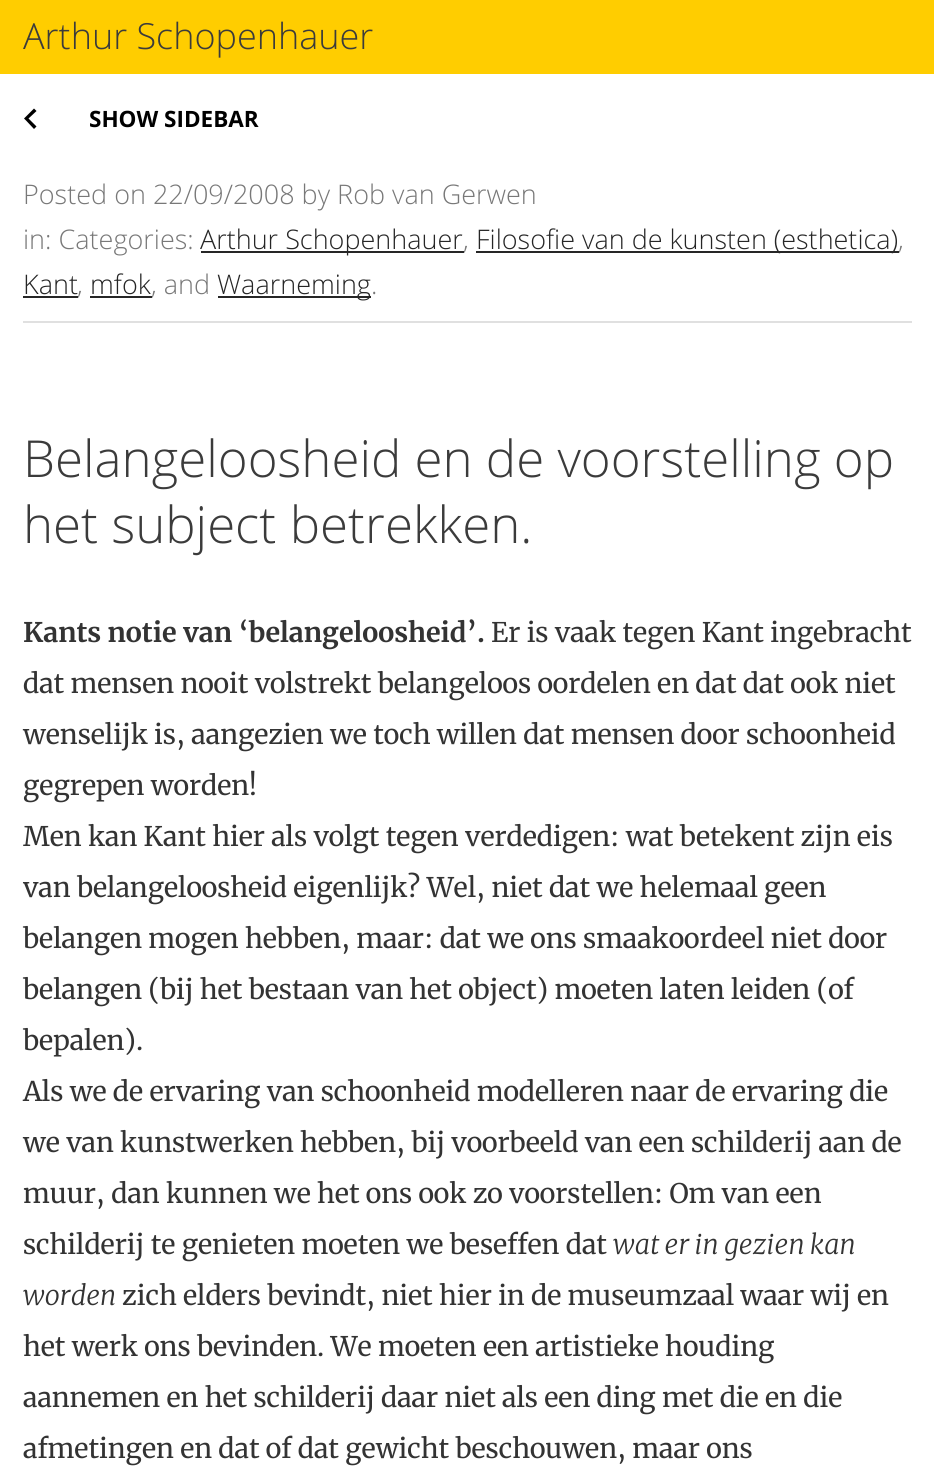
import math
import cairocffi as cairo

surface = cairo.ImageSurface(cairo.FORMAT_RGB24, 934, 1483)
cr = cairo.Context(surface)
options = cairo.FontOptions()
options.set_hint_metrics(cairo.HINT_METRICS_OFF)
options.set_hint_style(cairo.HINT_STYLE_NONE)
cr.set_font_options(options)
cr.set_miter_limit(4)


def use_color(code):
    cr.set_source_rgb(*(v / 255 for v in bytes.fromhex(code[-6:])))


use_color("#ffffff")
cr.paint()
use_color("#ffcd00")
cr.rectangle(0, 0, 934, 74)
cr.fill()
cr.select_font_face("Open Sans Light")
cr.set_font_size(36)
use_color("#3b3b3b")
cr.move_to(23, 49)
cr.show_text("Arthur Schopenhauer")
use_color("#000000")
cr.new_path()
cr.move_to(26.5, 121)
cr.line_to(34, 129)
cr.line_to(36.5, 126.5)
cr.line_to(28.5, 118.5)
cr.line_to(36.5, 111)
cr.line_to(34, 108.5)
cr.line_to(24, 118.5)
cr.close_path()
cr.fill()
cr.select_font_face("Open Sans", cairo.FONT_SLANT_NORMAL, cairo.FONT_WEIGHT_BOLD)
cr.set_font_size(22.5)
cr.move_to(89, 127)
cr.show_text("SHOW SIDEBAR")
use_color("#e0e0e0")
cr.rectangle(23, 321, 889, 2)
cr.fill()
cr.select_font_face("Open Sans Light")
cr.set_font_size(27)
use_color("#787878")
cr.move_to(23, 204)
cr.show_text("Posted on 22/09/2008 by Rob van Gerwen")
cr.move_to(23, 249)
cr.show_text("in: Categories:")
use_color("#262626")
cr.rectangle(201, 251, 263, 2)
cr.fill()
cr.move_to(200, 249)
cr.show_text("Arthur Schopenhauer")
use_color("#787878")
cr.move_to(463, 249)
cr.show_text(",")
use_color("#262626")
cr.rectangle(476, 251, 423, 2)
cr.fill()
cr.move_to(476, 249)
cr.show_text("Filosofie van de kunsten (esthetica)")
use_color("#787878")
cr.move_to(898, 249)
cr.show_text(",")
use_color("#262626")
cr.move_to(23, 294)
cr.show_text("Kant")
cr.rectangle(23, 296, 55, 2)
cr.fill()
use_color("#787878")
cr.move_to(77, 294)
cr.show_text(",")
use_color("#262626")
cr.move_to(90, 294)
cr.show_text("mfok")
cr.rectangle(90, 296, 62, 2)
cr.fill()
use_color("#787878")
cr.move_to(151, 294)
cr.show_text(", and")
use_color("#262626")
cr.rectangle(218, 296, 153, 2)
cr.fill()
cr.move_to(217, 294)
cr.show_text("Waarneming")
use_color("#787878")
cr.move_to(371, 294)
cr.show_text(".")
cr.set_font_size(51)
use_color("#3b3b3b")
cr.move_to(23, 477)
cr.show_text("Belangeloosheid en de voorstelling op")
cr.move_to(23, 543)
cr.show_text("het subject betrekken.")
cr.select_font_face("Merriweather", cairo.FONT_SLANT_NORMAL, cairo.FONT_WEIGHT_BOLD)
cr.set_font_size(27)
use_color("#333333")
cr.move_to(23, 642)
cr.show_text("Kants notie van ‘belangeloosheid’.")
cr.select_font_face("Merriweather")
cr.move_to(491, 642)
cr.show_text("Er is vaak tegen Kant ingebracht")
cr.move_to(23, 693)
cr.show_text("dat mensen nooit volstrekt belangeloos oordelen en dat dat ook niet")
cr.move_to(23, 744)
cr.show_text("wenselijk is, aangezien we toch willen dat mensen door schoonheid")
cr.move_to(23, 795)
cr.show_text("gegrepen worden!")
cr.move_to(23, 846)
cr.show_text("Men kan Kant hier als volgt tegen verdedigen: wat betekent zijn eis")
cr.move_to(23, 897)
cr.show_text("van belangeloosheid eigenlijk? Wel, niet dat we helemaal geen")
cr.move_to(23, 948)
cr.show_text("belangen mogen hebben, maar: dat we ons smaakoordeel niet door")
cr.move_to(23, 999)
cr.show_text("belangen (bij het bestaan van het object) moeten laten leiden (of")
cr.move_to(23, 1050)
cr.show_text("bepalen).")
cr.move_to(23, 1101)
cr.show_text("Als we de ervaring van schoonheid modelleren naar de ervaring die")
cr.move_to(23, 1152)
cr.show_text("we van kunstwerken hebben, bij voorbeeld van een schilderij aan de")
cr.move_to(23, 1203)
cr.show_text("muur, dan kunnen we het ons ook zo voorstellen: Om van een")
cr.move_to(23, 1254)
cr.show_text("schilderij te genieten moeten we beseffen dat")
cr.select_font_face("Merriweather Light", cairo.FONT_SLANT_ITALIC)
cr.move_to(613, 1254)
cr.show_text("wat er in gezien kan")
cr.move_to(23, 1305)
cr.show_text("worden")
cr.select_font_face("Merriweather")
cr.move_to(122, 1305)
cr.show_text("zich elders bevindt, niet hier in de museumzaal waar wij en")
cr.move_to(23, 1356)
cr.show_text("het werk ons bevinden. We moeten een artistieke houding")
cr.move_to(23, 1407)
cr.show_text("aannemen en het schilderij daar niet als een ding met die en die")
cr.move_to(23, 1458)
cr.show_text("afmetingen en dat of dat gewicht beschouwen, maar ons")
surface.write_to_png("result.png")
